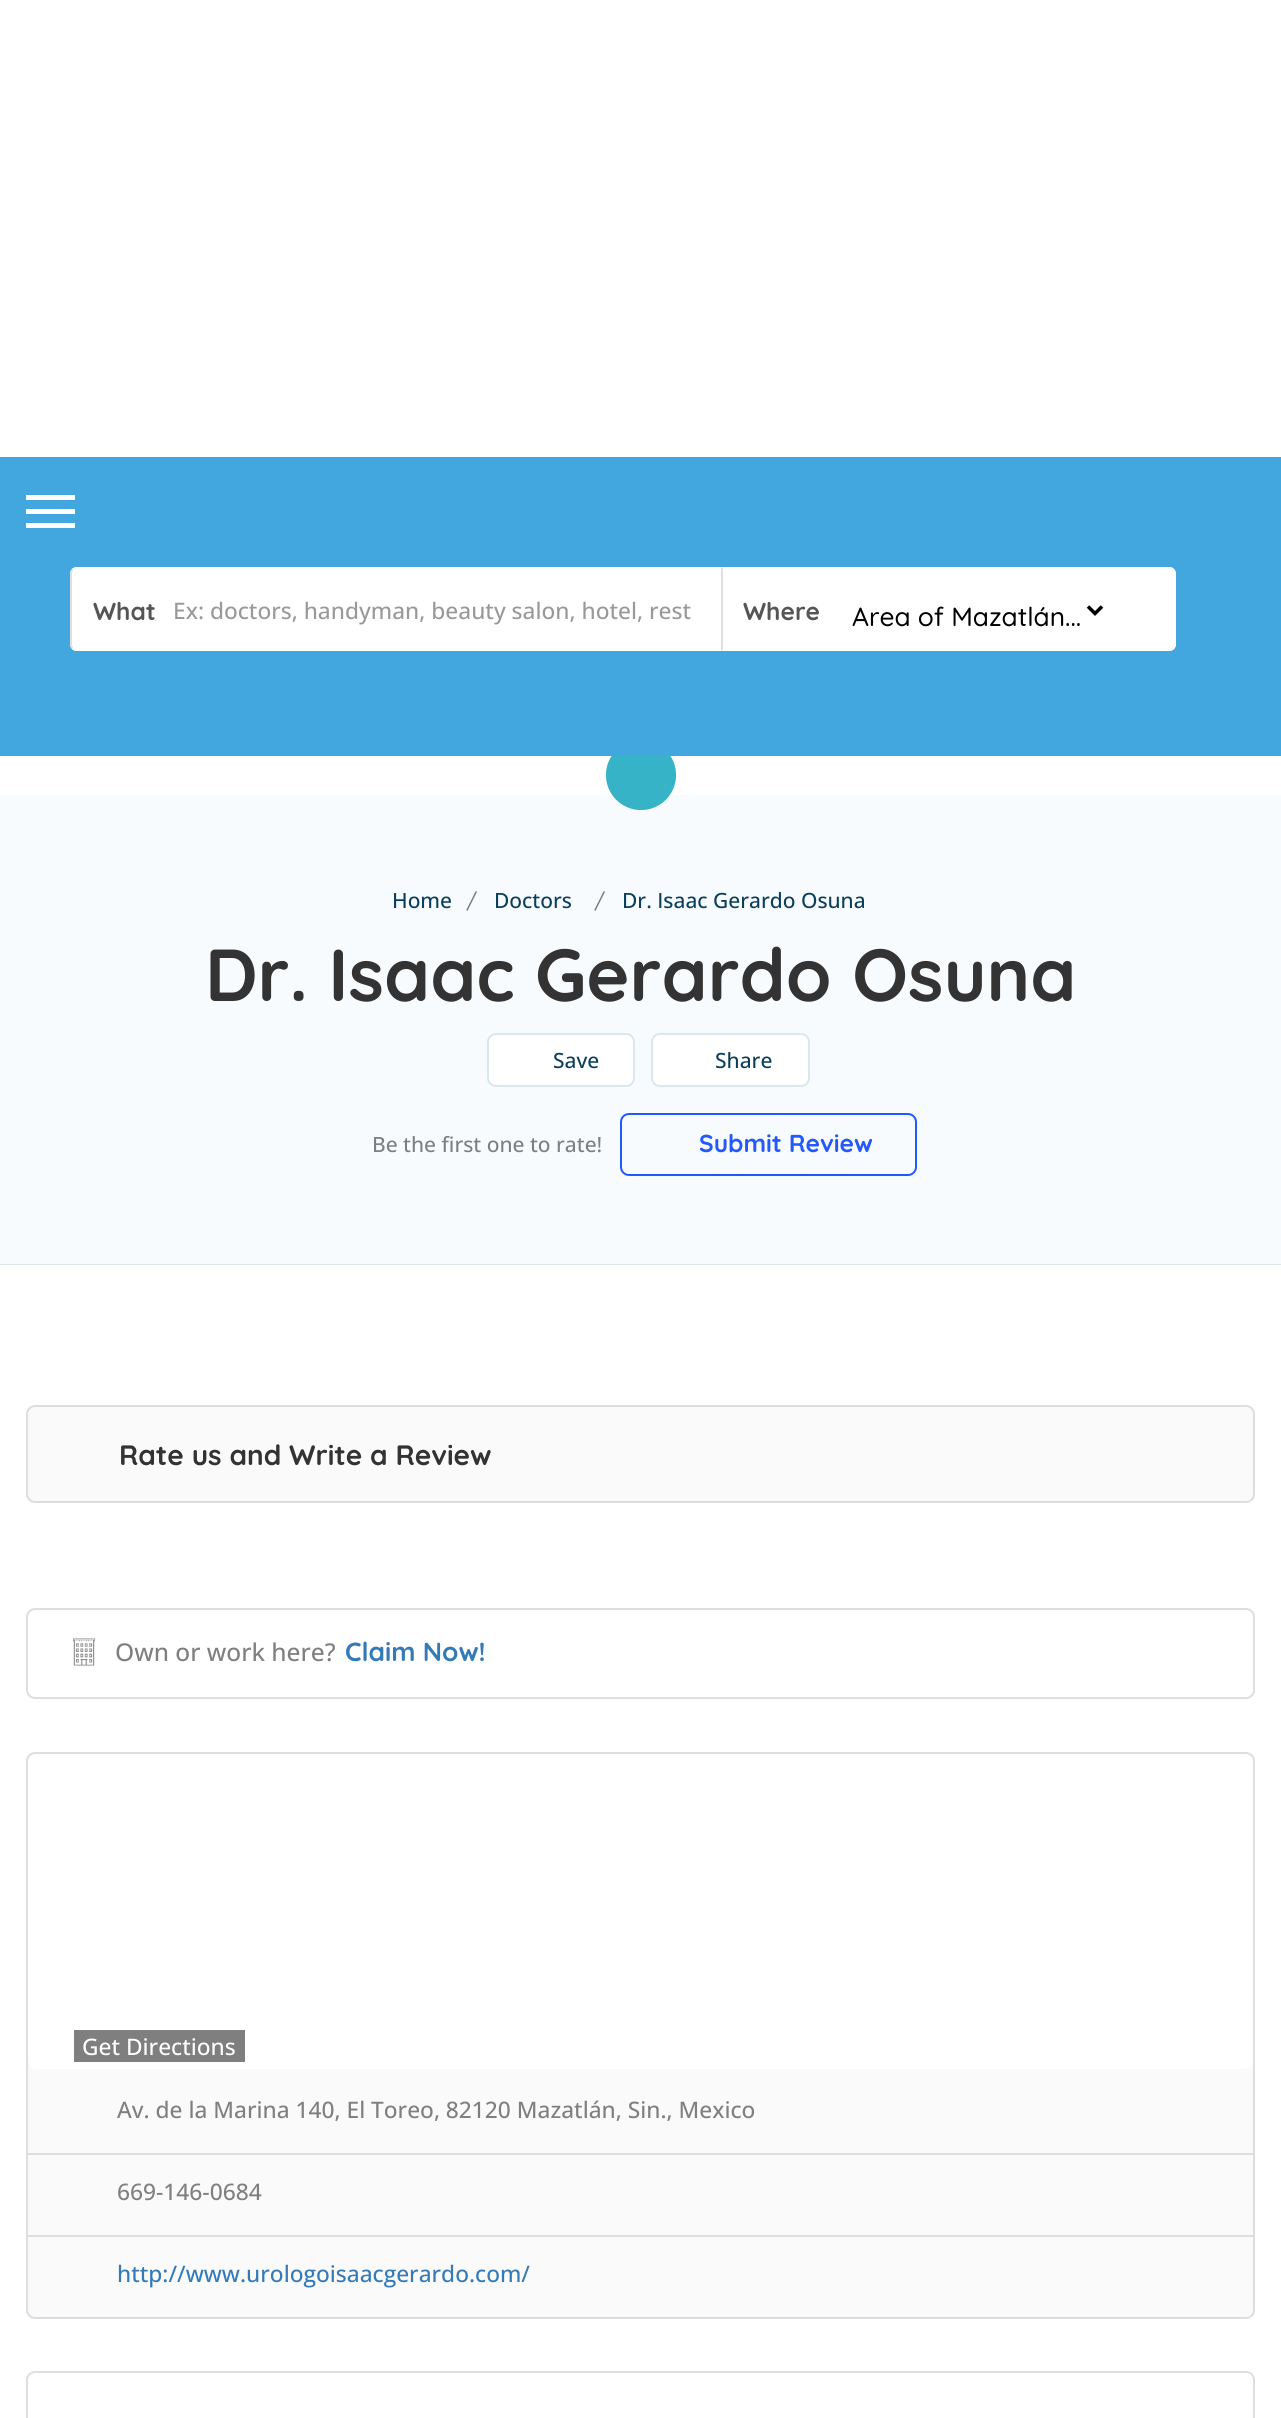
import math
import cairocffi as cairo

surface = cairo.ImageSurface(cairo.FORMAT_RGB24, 1281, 2418)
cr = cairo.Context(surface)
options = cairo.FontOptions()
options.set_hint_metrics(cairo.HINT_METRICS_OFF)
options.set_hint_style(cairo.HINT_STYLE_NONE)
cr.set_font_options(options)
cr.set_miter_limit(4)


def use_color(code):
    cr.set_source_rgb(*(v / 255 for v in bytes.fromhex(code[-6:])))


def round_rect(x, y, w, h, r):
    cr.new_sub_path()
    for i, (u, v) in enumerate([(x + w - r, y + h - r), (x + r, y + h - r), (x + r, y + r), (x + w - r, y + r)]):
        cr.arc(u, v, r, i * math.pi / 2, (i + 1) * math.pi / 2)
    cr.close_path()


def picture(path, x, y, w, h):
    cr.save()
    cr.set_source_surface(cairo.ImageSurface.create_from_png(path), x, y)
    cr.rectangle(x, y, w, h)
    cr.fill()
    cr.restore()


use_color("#ffffff")
cr.paint()
use_color("#f7fbfe")
cr.rectangle(0, 795, 1281, 469)
cr.fill()
cr.set_source_rgba(0.067, 0.651, 0.737, 0.6)
cr.arc(641, 775, 35, 0, 2 * math.pi)
cr.fill()
cr.arc(641, 775, 35, 0, 2 * math.pi)
cr.fill()
use_color("#42a7df")
cr.rectangle(0, 457, 1281, 299)
cr.fill()
use_color("#ffffff")
cr.rectangle(26, 495, 49, 5)
cr.fill()
cr.rectangle(26, 509, 49, 5)
cr.fill()
cr.rectangle(26, 523, 49, 5)
cr.fill()
cr.new_path()
cr.move_to(77, 567)
cr.line_to(721, 567)
cr.line_to(721, 651)
cr.line_to(77, 651)
cr.curve_to(73, 651, 70, 648, 70, 644)
cr.line_to(70, 574)
cr.curve_to(70, 570, 73, 567, 77, 567)
cr.close_path()
cr.fill()
cr.new_path()
cr.move_to(77, 567)
cr.curve_to(75, 567, 73, 568, 72, 569)
cr.line_to(73, 570)
cr.curve_to(74, 570, 76, 569, 77, 569)
cr.line_to(719, 569)
cr.line_to(721, 567)
cr.close_path()
cr.fill()
cr.new_path()
cr.move_to(721, 651)
cr.line_to(719, 649)
cr.line_to(77, 649)
cr.curve_to(76, 649, 74, 648, 73, 648)
cr.line_to(72, 649)
cr.curve_to(73, 650, 75, 651, 77, 651)
cr.close_path()
cr.fill()
use_color("#dedede")
cr.new_path()
cr.move_to(70, 574)
cr.line_to(70, 644)
cr.curve_to(70, 646, 71, 648, 72, 649)
cr.line_to(73, 648)
cr.line_to(72, 645)
cr.line_to(72, 573)
cr.line_to(73, 570)
cr.line_to(72, 569)
cr.curve_to(71, 570, 70, 572, 70, 574)
cr.close_path()
cr.fill()
cr.select_font_face("Quicksand", cairo.FONT_SLANT_NORMAL, cairo.FONT_WEIGHT_BOLD)
cr.set_font_size(24.5)
use_color("#555555")
cr.move_to(93, 620)
cr.show_text("What")
cr.select_font_face("Open Sans Medium")
cr.set_font_size(22.75)
use_color("#999999")
cr.move_to(173, 619)
cr.show_text("Ex: doctors, handyman, beauty salon, hotel, rest")
use_color("#ffffff")
cr.new_path()
cr.move_to(721, 567)
cr.line_to(1169, 567)
cr.curve_to(1173, 567, 1176, 570, 1176, 574)
cr.line_to(1176, 644)
cr.curve_to(1176, 648, 1173, 651, 1169, 651)
cr.line_to(721, 651)
cr.close_path()
cr.fill()
cr.new_path()
cr.move_to(721, 567)
cr.line_to(723, 569)
cr.line_to(1169, 569)
cr.curve_to(1170, 569, 1172, 570, 1173, 570)
cr.line_to(1174, 569)
cr.curve_to(1173, 568, 1171, 567, 1169, 567)
cr.close_path()
cr.fill()
cr.new_path()
cr.move_to(1176, 644)
cr.line_to(1176, 574)
cr.curve_to(1176, 572, 1175, 570, 1174, 569)
cr.line_to(1173, 570)
cr.line_to(1174, 573)
cr.line_to(1174, 645)
cr.line_to(1173, 648)
cr.line_to(1174, 649)
cr.curve_to(1175, 648, 1176, 646, 1176, 644)
cr.close_path()
cr.fill()
cr.new_path()
cr.move_to(1169, 651)
cr.curve_to(1171, 651, 1173, 650, 1174, 649)
cr.line_to(1173, 648)
cr.curve_to(1172, 648, 1170, 649, 1169, 649)
cr.line_to(723, 649)
cr.line_to(721, 651)
cr.close_path()
cr.fill()
use_color("#dedede")
cr.new_path()
cr.move_to(721, 567)
cr.line_to(721, 651)
cr.line_to(723, 649)
cr.line_to(723, 569)
cr.close_path()
cr.fill()
cr.select_font_face("Quicksand", cairo.FONT_SLANT_NORMAL, cairo.FONT_WEIGHT_BOLD)
cr.set_font_size(24.5)
use_color("#555555")
cr.move_to(743, 620)
cr.show_text("Where")
cr.new_path()
cr.move_to(1088, 606.5)
cr.line_to(1095, 613.5)
cr.line_to(1102, 606.5)
use_color("#000000")
cr.set_line_width(3.5)
cr.stroke()
cr.select_font_face("Quicksand Medium")
cr.set_font_size(26.25)
cr.move_to(852, 626)
cr.show_text("Area of Mazatlán...")
use_color("#dbe7ef")
cr.rectangle(0, 1264, 1281, 1)
cr.fill()
cr.select_font_face("Open Sans Medium")
cr.set_font_size(21)
use_color("#0a3e5b")
cr.move_to(392, 908)
cr.show_text("Home")
cr.select_font_face("Quicksand Medium")
use_color("#7f7f7f")
cr.move_to(466, 908)
cr.show_text("/")
cr.select_font_face("Open Sans Medium")
use_color("#0a3e5b")
cr.move_to(494, 908)
cr.show_text("Doctors")
cr.select_font_face("Quicksand Medium")
use_color("#7f7f7f")
cr.move_to(594, 908)
cr.show_text("/")
cr.select_font_face("Open Sans Medium")
use_color("#0a3e5b")
cr.move_to(622, 908)
cr.show_text("Dr. Isaac Gerardo Osuna")
cr.select_font_face("Quicksand", cairo.FONT_SLANT_NORMAL, cairo.FONT_WEIGHT_BOLD)
cr.set_font_size(73.5)
use_color("#333333")
cr.move_to(205, 1001)
cr.show_text("Dr. Isaac Gerardo Osuna")
use_color("#ffffff")
round_rect(488, 1034, 146, 52, 8)
cr.fill_preserve()
use_color("#dbe7ef")
cr.set_line_width(2)
cr.stroke()
cr.select_font_face("Open Sans Medium")
cr.set_font_size(21)
use_color("#0a3e5b")
cr.move_to(553, 1068)
cr.show_text("Save")
use_color("#ffffff")
round_rect(652, 1034, 157, 52, 8)
cr.fill_preserve()
use_color("#dbe7ef")
cr.stroke()
use_color("#0a3e5b")
cr.move_to(715, 1068)
cr.show_text("Share")
use_color("#7f7f7f")
cr.move_to(372, 1152)
cr.show_text("Be the first one to rate!")
round_rect(621, 1114, 295, 61, 8)
use_color("#2458ff")
cr.stroke()
cr.select_font_face("Quicksand", cairo.FONT_SLANT_NORMAL, cairo.FONT_WEIGHT_BOLD)
cr.set_font_size(24.5)
cr.move_to(699, 1152)
cr.show_text("Submit Review")
use_color("#fafafa")
round_rect(27, 1406, 1227, 96, 8)
cr.fill_preserve()
use_color("#dedede")
cr.stroke()
cr.set_font_size(28)
use_color("#333333")
cr.move_to(119, 1465)
cr.show_text("Rate us and Write a Review")
round_rect(27, 1609, 1227, 89, 8)
use_color("#dedede")
cr.stroke()
picture("img1.png", 72, 1638, 24, 28)
cr.select_font_face("Open Sans Medium")
cr.set_font_size(24.5)
use_color("#7f7f7f")
cr.move_to(115, 1661)
cr.show_text("Own or work here?")
cr.select_font_face("Quicksand", cairo.FONT_SLANT_NORMAL, cairo.FONT_WEIGHT_BOLD)
cr.set_font_size(26.25)
use_color("#337ab7")
cr.move_to(345, 1661)
cr.show_text("Claim Now!")
use_color("#fafafa")
round_rect(27, 1753, 1227, 565, 8)
cr.fill_preserve()
use_color("#dedede")
cr.stroke()
use_color("#ffffff")
round_rect(28, 1754, 1225, 315, 9)
cr.fill()
use_color("#7f7f7f")
cr.rectangle(74, 2030, 171, 32)
cr.fill()
cr.select_font_face("Open Sans Medium")
cr.set_font_size(22.75)
use_color("#ffffff")
cr.move_to(82, 2055)
cr.show_text("Get Directions")
use_color("#dedede")
cr.rectangle(28, 2153, 1225, 2)
cr.fill()
use_color("#7f7f7f")
cr.move_to(117, 2118)
cr.show_text("Av. de la Marina 140, El Toreo, 82120 Mazatlán, Sin., Mexico")
use_color("#dedede")
cr.rectangle(28, 2235, 1225, 2)
cr.fill()
use_color("#7f7f7f")
cr.move_to(117, 2200)
cr.show_text("669-146-0684")
use_color("#337ab7")
cr.move_to(117, 2282)
cr.show_text("http://www.urologoisaacgerardo.com/")
round_rect(27, 2372, 1227, 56, 8)
use_color("#dedede")
cr.stroke()
surface.write_to_png("result.png")
